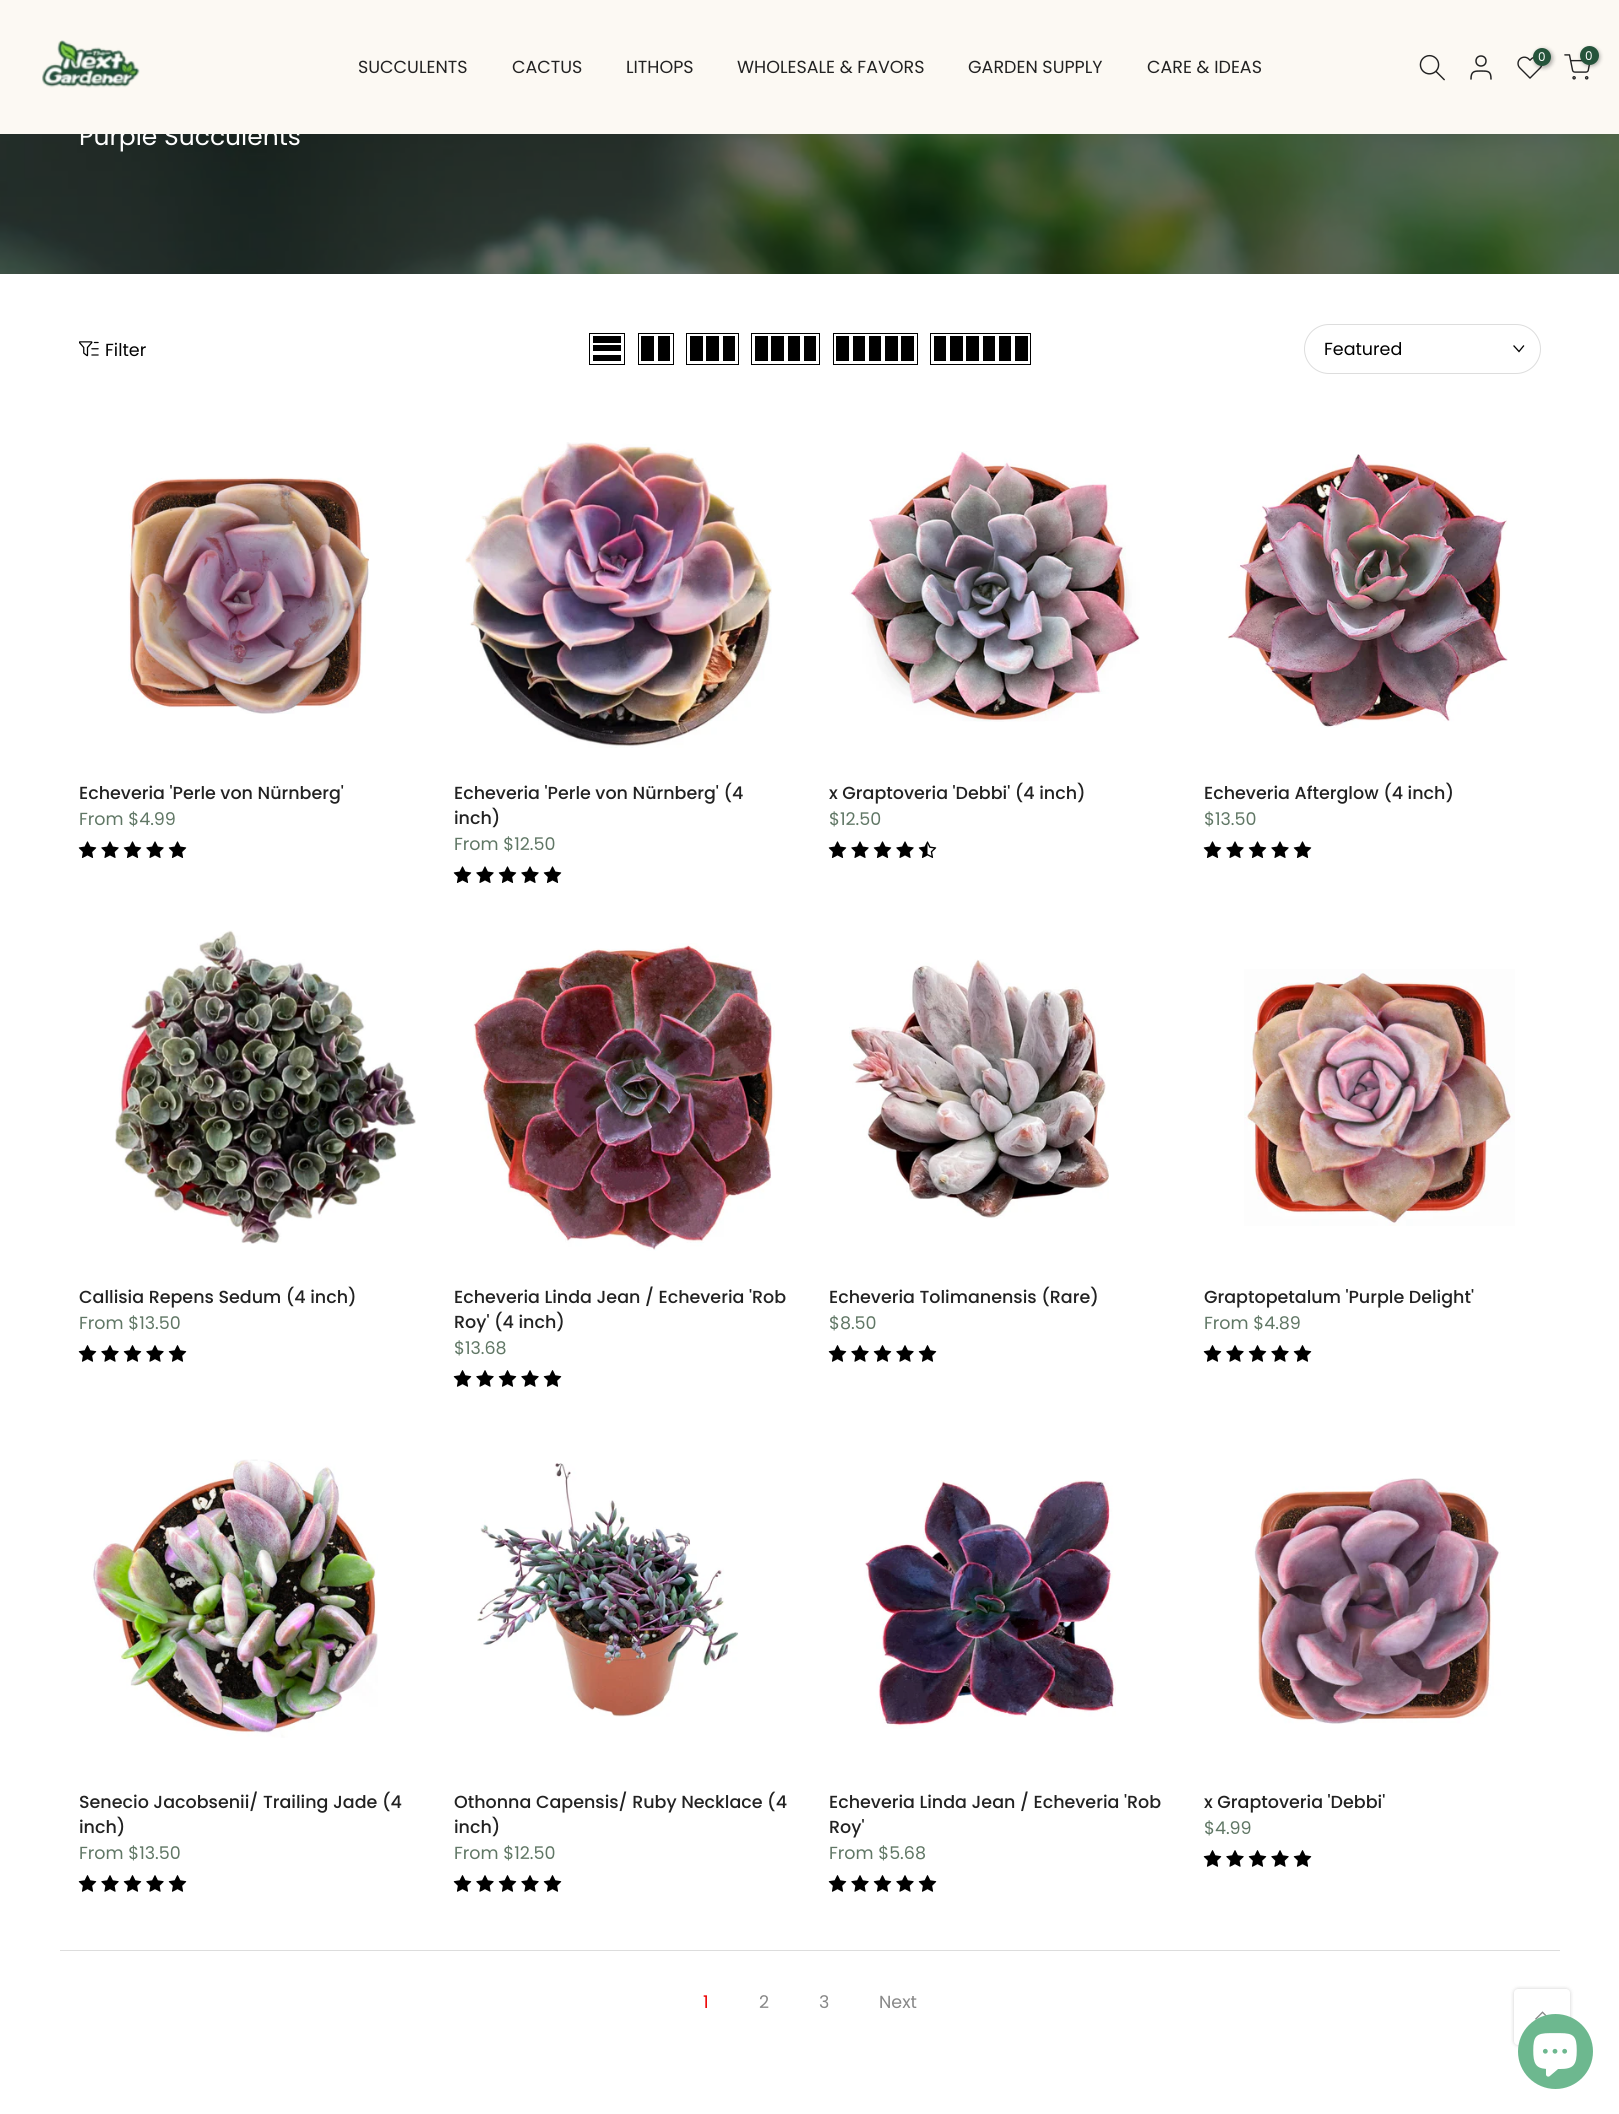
import math
import cairocffi as cairo

surface = cairo.ImageSurface(cairo.FORMAT_RGB24, 1619, 2114)
cr = cairo.Context(surface)
options = cairo.FontOptions()
options.set_hint_metrics(cairo.HINT_METRICS_OFF)
options.set_hint_style(cairo.HINT_STYLE_NONE)
cr.set_font_options(options)
cr.set_miter_limit(4)


def use_color(code):
    cr.set_source_rgb(*(v / 255 for v in bytes.fromhex(code[-6:])))


def round_rect(x, y, w, h, r):
    cr.new_sub_path()
    for i, (u, v) in enumerate([(x + w - r, y + h - r), (x + r, y + h - r), (x + r, y + r), (x + w - r, y + r)]):
        cr.arc(u, v, r, i * math.pi / 2, (i + 1) * math.pi / 2)
    cr.close_path()


def shadow(x, y, w, h, r, blur, alpha):
    cr.push_group_with_content(cairo.CONTENT_ALPHA)
    cr.set_operator(cairo.OPERATOR_SOURCE)
    for i in range(15, -16, -2):
        e = blur * i / 6
        if min(w, h) + 2 * e > 0:
            cr.set_source_rgba(0, 0, 0, alpha * math.erfc((i - 1) / 8.5) / 2)
            round_rect(x - e, y - e, w + 2 * e, h + 2 * e, max(0, min(r + e + blur * .6, min(w, h) / 2 + e)))
            cr.fill()
    cr.mask(cr.pop_group())


def picture(path, x, y, w, h):
    cr.save()
    cr.set_source_surface(cairo.ImageSurface.create_from_png(path), x, y)
    cr.rectangle(x, y, w, h)
    cr.fill()
    cr.restore()


use_color("#ffffff")
cr.paint()
picture("img5.png", 0, 134, 1619, 140)
cr.select_font_face("Poppins")
cr.set_font_size(25)
use_color("#ffffff")
cr.move_to(79, 145)
cr.show_text("Purple Succulents")
use_color("#fcf9f3")
cr.rectangle(0, 0, 1619, 134)
cr.fill()
picture("img1.png", 42, 40, 98, 48)
picture("img2.png", 1419, 54, 26, 27)
cr.arc(1481, 61, 5, 0, 2 * math.pi)
use_color("#222222")
cr.set_line_width(1.5)
cr.stroke()
cr.new_path()
cr.move_to(1491, 79)
cr.curve_to(1491, 71, 1488, 71, 1481, 71)
cr.curve_to(1474.5, 71, 1471, 71, 1471, 79)
cr.set_line_cap(cairo.LINE_CAP_ROUND)
cr.set_line_join(cairo.LINE_JOIN_ROUND)
cr.stroke()
picture("img3.png", 1517, 56, 26, 23)
use_color("#000000")
shadow(1534, 49, 19, 19, 9.5, 2, 0.3)
use_color("#25543b")
cr.arc(1542, 57, 9, 0, 2 * math.pi)
cr.fill()
cr.set_font_size(12)
use_color("#ffffff")
cr.move_to(1538, 61)
cr.show_text("0")
picture("img4.png", 1564, 54, 27, 26)
use_color("#000000")
shadow(1581, 48, 19, 18, 9, 2, 0.3)
use_color("#25543b")
cr.arc(1589.5, 55.5, 9.5, 0, 2 * math.pi)
cr.fill()
use_color("#ffffff")
cr.move_to(1585, 60)
cr.show_text("0")
cr.set_font_size(17.5)
use_color("#222222")
cr.move_to(358, 73)
cr.show_text("SUCCULENTS")
cr.move_to(512, 73)
cr.show_text("CACTUS")
cr.move_to(626, 73)
cr.show_text("LITHOPS")
cr.move_to(737, 73)
cr.show_text("WHOLESALE & FAVORS")
cr.move_to(968, 73)
cr.show_text("GARDEN SUPPLY")
cr.move_to(1147, 73)
cr.show_text("CARE & IDEAS")
picture("img6.png", 79, 341, 20, 16)
use_color("#000000")
cr.move_to(105, 356)
cr.show_text("Filter")
cr.rectangle(589.5, 333.5, 35, 31)
cr.set_line_width(1)
cr.set_line_cap(cairo.LINE_CAP_BUTT)
cr.set_line_join(cairo.LINE_JOIN_MITER)
cr.stroke()
cr.rectangle(593, 355, 28, 6)
cr.fill()
cr.rectangle(593, 345, 28, 6)
cr.fill()
cr.rectangle(593, 336, 28, 7)
cr.fill()
cr.rectangle(638.5, 333.5, 35, 31)
cr.stroke()
cr.rectangle(658, 336, 12, 25)
cr.fill()
cr.rectangle(641, 336, 13, 25)
cr.fill()
cr.rectangle(686.5, 333.5, 52, 31)
cr.stroke()
cr.rectangle(723, 336, 12, 25)
cr.fill()
cr.rectangle(706, 336, 13, 25)
cr.fill()
cr.rectangle(690, 336, 13, 25)
cr.fill()
cr.rectangle(751.5, 333.5, 68, 31)
cr.stroke()
cr.rectangle(804, 336, 12, 25)
cr.fill()
cr.rectangle(788, 336, 12, 25)
cr.fill()
cr.rectangle(771, 336, 13, 25)
cr.fill()
cr.rectangle(755, 336, 13, 25)
cr.fill()
cr.rectangle(833.5, 333.5, 84, 31)
cr.stroke()
cr.rectangle(901, 336, 13, 25)
cr.fill()
cr.rectangle(885, 336, 13, 25)
cr.fill()
cr.rectangle(869, 336, 12, 25)
cr.fill()
cr.rectangle(853, 336, 12, 25)
cr.fill()
cr.rectangle(836, 336, 13, 25)
cr.fill()
cr.rectangle(930.5, 333.5, 100, 31)
cr.stroke()
cr.rectangle(1015, 336, 13, 25)
cr.fill()
cr.rectangle(999, 336, 12, 25)
cr.fill()
cr.rectangle(983, 336, 12, 25)
cr.fill()
cr.rectangle(966, 336, 13, 25)
cr.fill()
cr.rectangle(950, 336, 13, 25)
cr.fill()
cr.rectangle(934, 336, 12, 25)
cr.fill()
round_rect(1304.5, 324.5, 236, 49, 24.5)
use_color("#dddddd")
cr.stroke()
use_color("#000000")
cr.move_to(1324, 355)
cr.show_text("Featured")
cr.new_path()
cr.move_to(1523.5, 346)
cr.line_to(1519, 351.5)
cr.line_to(1514, 346)
cr.set_line_width(1.3)
cr.set_line_cap(cairo.LINE_CAP_SQUARE)
cr.stroke()
picture("img7.png", 128, 477, 242, 237)
cr.select_font_face("Poppins Medium")
use_color("#222222")
cr.move_to(79, 799)
cr.show_text("Echeveria 'Perle von Nürnberg'")
cr.select_font_face("Poppins")
use_color("#607765")
cr.move_to(79, 825)
cr.show_text("From $4.99")
picture("img8.png", 78, 841, 19, 17)
picture("img9.png", 101, 841, 18, 17)
picture("img8.png", 123, 841, 19, 17)
picture("img9.png", 146, 841, 18, 17)
picture("img8.png", 168, 841, 19, 17)
picture("img10.png", 465, 442, 307, 306)
cr.select_font_face("Poppins Medium")
use_color("#222222")
cr.move_to(454, 799)
cr.show_text("Echeveria 'Perle von Nürnberg' (4")
cr.move_to(454, 824)
cr.show_text("inch)")
cr.select_font_face("Poppins")
use_color("#607765")
cr.move_to(454, 850)
cr.show_text("From $12.50")
picture("img8.png", 453, 866, 19, 17)
picture("img9.png", 476, 866, 18, 17)
picture("img8.png", 498, 866, 19, 17)
picture("img9.png", 521, 866, 18, 17)
picture("img8.png", 543, 866, 19, 17)
picture("img11.png", 849, 451, 291, 271)
cr.select_font_face("Poppins Medium")
use_color("#222222")
cr.move_to(829, 799)
cr.show_text("x Graptoveria 'Debbi' (4 inch)")
cr.select_font_face("Poppins")
use_color("#607765")
cr.move_to(829, 825)
cr.show_text("$12.50")
picture("img8.png", 828, 841, 19, 17)
picture("img9.png", 851, 841, 18, 17)
picture("img8.png", 873, 841, 19, 17)
picture("img9.png", 896, 841, 18, 17)
picture("img12.png", 918, 841, 19, 17)
picture("img13.png", 1227, 454, 281, 274)
cr.select_font_face("Poppins Medium")
use_color("#222222")
cr.move_to(1204, 799)
cr.show_text("Echeveria Afterglow (4 inch)")
cr.select_font_face("Poppins")
use_color("#607765")
cr.move_to(1204, 825)
cr.show_text("$13.50")
picture("img8.png", 1203, 841, 19, 17)
picture("img9.png", 1226, 841, 18, 17)
picture("img8.png", 1248, 841, 19, 17)
picture("img9.png", 1271, 841, 18, 17)
picture("img8.png", 1293, 841, 19, 17)
picture("img14.png", 115, 930, 301, 314)
cr.select_font_face("Poppins Medium")
use_color("#222222")
cr.move_to(79, 1303)
cr.show_text("Callisia Repens Sedum (4 inch)")
cr.select_font_face("Poppins")
use_color("#607765")
cr.move_to(79, 1329)
cr.show_text("From $13.50")
picture("img15.png", 78, 1345, 19, 17)
picture("img16.png", 101, 1345, 18, 17)
picture("img15.png", 123, 1345, 19, 17)
picture("img16.png", 146, 1345, 18, 17)
picture("img15.png", 168, 1345, 19, 17)
picture("img17.png", 473, 943, 302, 308)
cr.select_font_face("Poppins Medium")
use_color("#222222")
cr.move_to(454, 1303)
cr.show_text("Echeveria Linda Jean / Echeveria 'Rob")
cr.move_to(454, 1328)
cr.show_text("Roy' (4 inch)")
cr.select_font_face("Poppins")
use_color("#607765")
cr.move_to(454, 1354)
cr.show_text("$13.68")
picture("img15.png", 453, 1370, 19, 17)
picture("img16.png", 476, 1370, 18, 17)
picture("img15.png", 498, 1370, 19, 17)
picture("img16.png", 521, 1370, 18, 17)
picture("img15.png", 543, 1370, 19, 17)
picture("img18.png", 849, 959, 260, 260)
cr.select_font_face("Poppins Medium")
use_color("#222222")
cr.move_to(829, 1303)
cr.show_text("Echeveria Tolimanensis (Rare)")
cr.select_font_face("Poppins")
use_color("#607765")
cr.move_to(829, 1329)
cr.show_text("$8.50")
picture("img15.png", 828, 1345, 19, 17)
picture("img16.png", 851, 1345, 18, 17)
picture("img15.png", 873, 1345, 19, 17)
picture("img16.png", 896, 1345, 18, 17)
picture("img15.png", 918, 1345, 19, 17)
picture("img19.png", 1244, 969, 271, 257)
cr.select_font_face("Poppins Medium")
use_color("#222222")
cr.move_to(1204, 1303)
cr.show_text("Graptopetalum 'Purple Delight'")
cr.select_font_face("Poppins")
use_color("#607765")
cr.move_to(1204, 1329)
cr.show_text("From $4.89")
picture("img15.png", 1203, 1345, 19, 17)
picture("img16.png", 1226, 1345, 18, 17)
picture("img15.png", 1248, 1345, 19, 17)
picture("img16.png", 1271, 1345, 18, 17)
picture("img15.png", 1293, 1345, 19, 17)
picture("img20.png", 92, 1459, 286, 279)
cr.select_font_face("Poppins Medium")
use_color("#222222")
cr.move_to(79, 1808)
cr.show_text("Senecio Jacobsenii/ Trailing Jade (4")
cr.move_to(79, 1833)
cr.show_text("inch)")
cr.select_font_face("Poppins")
use_color("#607765")
cr.move_to(79, 1859)
cr.show_text("From $13.50")
picture("img15.png", 78, 1875, 19, 17)
picture("img16.png", 101, 1875, 18, 17)
picture("img15.png", 123, 1875, 19, 17)
picture("img16.png", 146, 1875, 18, 17)
picture("img15.png", 168, 1875, 19, 17)
picture("img21.png", 477, 1463, 262, 254)
cr.select_font_face("Poppins Medium")
use_color("#222222")
cr.move_to(454, 1808)
cr.show_text("Othonna Capensis/ Ruby Necklace (4")
cr.move_to(454, 1833)
cr.show_text("inch)")
cr.select_font_face("Poppins")
use_color("#607765")
cr.move_to(454, 1859)
cr.show_text("From $12.50")
picture("img15.png", 453, 1875, 19, 17)
picture("img16.png", 476, 1875, 18, 17)
picture("img15.png", 498, 1875, 19, 17)
picture("img16.png", 521, 1875, 18, 17)
picture("img15.png", 543, 1875, 19, 17)
picture("img22.png", 864, 1480, 252, 249)
cr.select_font_face("Poppins Medium")
use_color("#222222")
cr.move_to(829, 1808)
cr.show_text("Echeveria Linda Jean / Echeveria 'Rob")
cr.move_to(829, 1833)
cr.show_text("Roy'")
cr.select_font_face("Poppins")
use_color("#607765")
cr.move_to(829, 1859)
cr.show_text("From $5.68")
picture("img15.png", 828, 1875, 19, 17)
picture("img16.png", 851, 1875, 18, 17)
picture("img15.png", 873, 1875, 19, 17)
picture("img16.png", 896, 1875, 18, 17)
picture("img15.png", 918, 1875, 19, 17)
picture("img23.png", 1253, 1478, 248, 246)
cr.select_font_face("Poppins Medium")
use_color("#222222")
cr.move_to(1204, 1808)
cr.show_text("x Graptoveria 'Debbi'")
cr.select_font_face("Poppins")
use_color("#607765")
cr.move_to(1204, 1834)
cr.show_text("$4.99")
picture("img15.png", 1203, 1850, 19, 17)
picture("img16.png", 1226, 1850, 18, 17)
picture("img15.png", 1248, 1850, 19, 17)
picture("img16.png", 1271, 1850, 18, 17)
picture("img15.png", 1293, 1850, 19, 17)
use_color("#dddddd")
cr.rectangle(60, 1950, 1500, 1)
cr.fill()
use_color("#ec0101")
cr.move_to(703, 2008)
cr.show_text("1")
use_color("#878787")
cr.move_to(759, 2008)
cr.show_text("2")
cr.move_to(819, 2008)
cr.show_text("3")
cr.move_to(879, 2008)
cr.show_text("Next")
use_color("#000000")
shadow(1514, 1989, 56, 56, 4, 2, 0.2)
use_color("#ffffff")
round_rect(1514, 1989, 56, 56, 4)
cr.fill()
picture("img24.png", 1535, 2011, 12, 9)
use_color("#6db88f")
cr.arc(1555.5, 2051.5, 37.5, 0, 2 * math.pi)
cr.fill()
picture("img25.png", 1533, 2033, 44, 44)
surface.write_to_png("result.png")
